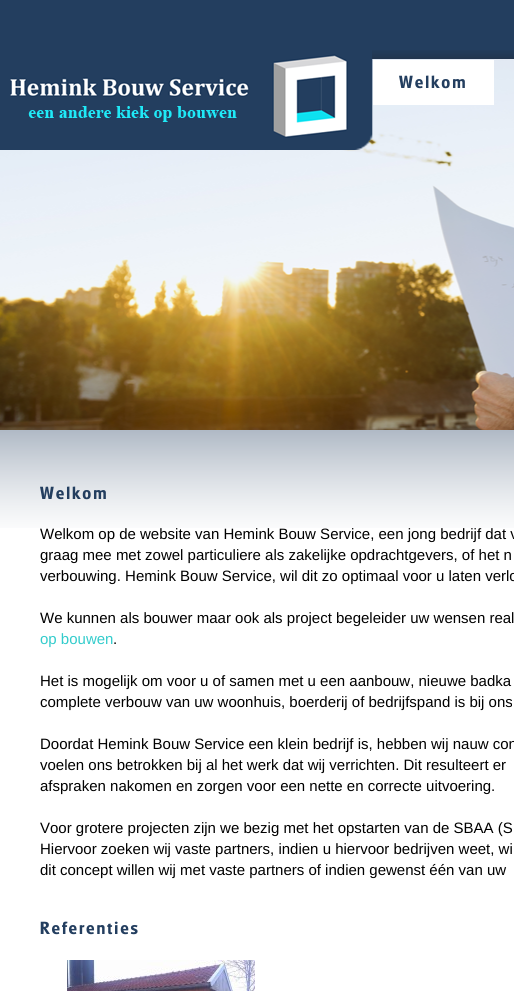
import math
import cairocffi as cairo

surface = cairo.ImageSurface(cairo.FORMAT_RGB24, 514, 991)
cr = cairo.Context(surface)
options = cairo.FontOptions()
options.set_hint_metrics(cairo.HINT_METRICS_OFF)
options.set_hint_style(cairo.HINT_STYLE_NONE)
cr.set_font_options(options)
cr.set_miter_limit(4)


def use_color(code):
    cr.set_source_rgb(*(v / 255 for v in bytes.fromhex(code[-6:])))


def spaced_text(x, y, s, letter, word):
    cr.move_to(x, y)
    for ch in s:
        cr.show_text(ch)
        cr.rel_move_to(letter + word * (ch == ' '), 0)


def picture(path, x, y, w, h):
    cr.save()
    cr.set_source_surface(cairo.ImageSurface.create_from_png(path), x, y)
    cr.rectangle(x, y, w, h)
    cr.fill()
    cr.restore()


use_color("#ffffff")
cr.paint()
picture("img1.png", 0, 0, 514, 528)
picture("img2.png", 372, 50, 142, 9)
picture("img3.png", 0, 59, 514, 371)
picture("img4.png", 10, 54, 338, 84)
use_color("#ffffff")
cr.rectangle(373, 60, 121, 45)
cr.fill()
cr.select_font_face("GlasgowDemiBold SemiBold")
cr.set_font_size(17)
use_color("#233e5f")
spaced_text(399, 88, "Welkom", 2, 0)
spaced_text(40, 499, "Welkom", 2, 0)
cr.select_font_face("Liberation Sans")
cr.set_font_size(15)
use_color("#000000")
cr.move_to(40, 539)
cr.show_text("Welkom op de website van Hemink Bouw Service, een jong bedrijf dat v")
cr.move_to(40, 560)
cr.show_text("graag mee met zowel particuliere als zakelijke opdrachtgevers, of het n")
cr.move_to(40, 581)
cr.show_text("verbouwing. Hemink Bouw Service, wil dit zo optimaal voor u laten verlo")
cr.move_to(40, 623)
cr.show_text("We kunnen als bouwer maar ook als project begeleider uw wensen real")
use_color("#33cccc")
cr.move_to(40, 644)
cr.show_text("op bouwen")
use_color("#000000")
cr.move_to(113, 644)
cr.show_text(".")
cr.move_to(40, 686)
cr.show_text("Het is mogelijk om voor u of samen met u een aanbouw, nieuwe badka")
cr.move_to(40, 707)
cr.show_text("complete verbouw van uw woonhuis, boerderij of bedrijfspand is bij ons")
cr.move_to(40, 749)
cr.show_text("Doordat Hemink Bouw Service een klein bedrijf is, hebben wij nauw con")
cr.move_to(40, 770)
cr.show_text("voelen ons betrokken bij al het werk dat wij verrichten. Dit resulteert er")
cr.move_to(40, 791)
cr.show_text("afspraken nakomen en zorgen voor een nette en correcte uitvoering.")
cr.move_to(40, 833)
cr.show_text("Voor grotere projecten zijn we bezig met het opstarten van de SBAA (S")
cr.move_to(40, 854)
cr.show_text("Hiervoor zoeken wij vaste partners, indien u hiervoor bedrijven weet, wi")
cr.move_to(40, 875)
cr.show_text("dit concept willen wij met vaste partners of indien gewenst één van uw")
cr.select_font_face("GlasgowDemiBold SemiBold")
cr.set_font_size(17)
use_color("#233e5f")
spaced_text(40, 934, "Referenties", 2, 0)
picture("img5.png", 67, 960, 188, 31)
surface.write_to_png("result.png")
